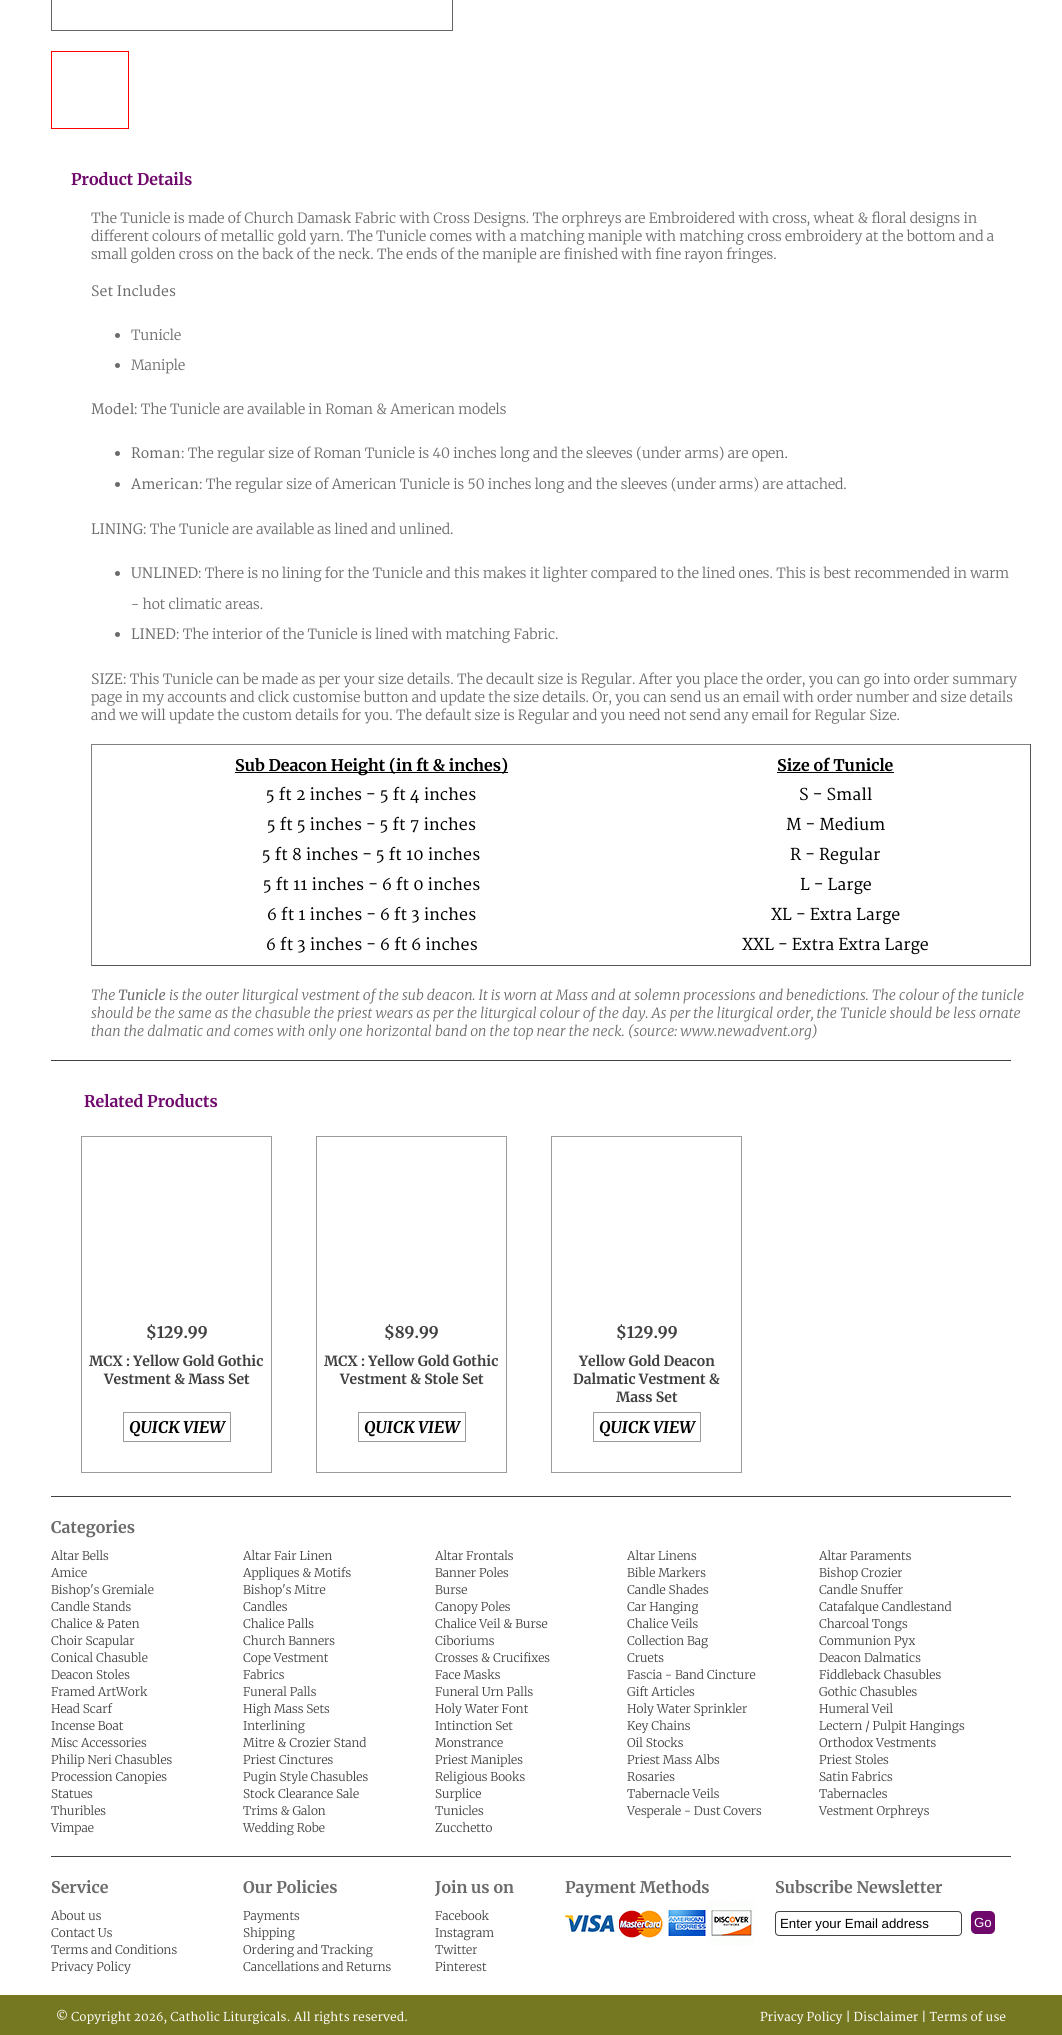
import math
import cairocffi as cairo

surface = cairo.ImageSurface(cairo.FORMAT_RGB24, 1062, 2035)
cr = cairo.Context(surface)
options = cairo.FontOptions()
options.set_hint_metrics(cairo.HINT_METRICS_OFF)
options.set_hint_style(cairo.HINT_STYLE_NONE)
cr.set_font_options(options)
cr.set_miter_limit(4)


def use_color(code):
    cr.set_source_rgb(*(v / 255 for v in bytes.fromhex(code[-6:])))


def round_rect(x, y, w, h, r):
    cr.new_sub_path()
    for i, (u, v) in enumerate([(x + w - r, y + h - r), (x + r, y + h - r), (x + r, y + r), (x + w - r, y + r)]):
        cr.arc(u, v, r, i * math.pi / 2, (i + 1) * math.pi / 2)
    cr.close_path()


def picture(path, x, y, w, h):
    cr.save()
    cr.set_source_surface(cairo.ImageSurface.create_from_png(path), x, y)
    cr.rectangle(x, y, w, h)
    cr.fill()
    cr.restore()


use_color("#ffffff")
cr.paint()
cr.rectangle(51.5, -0.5, 401, 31)
use_color("#666666")
cr.set_line_width(1)
cr.stroke()
cr.rectangle(51.5, 51.5, 77, 77)
use_color("#ff0000")
cr.stroke()
cr.select_font_face("Merriweather", cairo.FONT_SLANT_NORMAL, cairo.FONT_WEIGHT_BOLD)
cr.set_font_size(16)
use_color("#6f096c")
cr.move_to(71, 185)
cr.show_text("Product Details")
cr.select_font_face("Merriweather Light")
cr.set_font_size(14)
use_color("#6b6b6b")
cr.move_to(91, 223)
cr.show_text("The Tunicle is made of Church Damask Fabric with Cross Designs. The orphreys are Embroidered with cross, wheat & floral designs in")
cr.move_to(91, 241)
cr.show_text("different colours of metallic gold yarn. The Tunicle comes with a matching maniple with matching cross embroidery at the bottom and a")
cr.move_to(91, 259)
cr.show_text("small golden cross on the back of the neck. The ends of the maniple are finished with fine rayon fringes.")
cr.select_font_face("Merriweather")
cr.move_to(91, 296)
cr.show_text("Set Includes")
cr.new_path()
cr.arc(117.5, 335.5, 2.5, 0, 2 * math.pi)
cr.fill()
cr.select_font_face("Merriweather Light")
cr.move_to(131, 340)
cr.show_text("Tunicle")
cr.new_path()
cr.arc(117.5, 365.5, 2.5, 0, 2 * math.pi)
cr.fill()
cr.move_to(131, 370)
cr.show_text("Maniple")
cr.select_font_face("Merriweather")
cr.move_to(91, 414)
cr.show_text("Model")
cr.select_font_face("Merriweather Light")
cr.move_to(134, 414)
cr.show_text(": The Tunicle are available in Roman & American models")
cr.new_path()
cr.arc(117.5, 453.5, 2.5, 0, 2 * math.pi)
cr.fill()
cr.select_font_face("Merriweather")
cr.move_to(131, 458)
cr.show_text("Roman")
cr.select_font_face("Merriweather Light")
cr.move_to(181, 458)
cr.show_text(": The regular size of Roman Tunicle is 40 inches long and the sleeves (under arms) are open.")
cr.new_path()
cr.arc(117.5, 484.5, 2.5, 0, 2 * math.pi)
cr.fill()
cr.select_font_face("Merriweather")
cr.move_to(131, 489)
cr.show_text("American")
cr.select_font_face("Merriweather Light")
cr.move_to(199, 489)
cr.show_text(": The regular size of American Tunicle is 50 inches long and the sleeves (under arms) are attached.")
cr.select_font_face("Merriweather")
cr.move_to(91, 534)
cr.show_text("LINING")
cr.select_font_face("Merriweather Light")
cr.move_to(143, 534)
cr.show_text(": The Tunicle are available as lined and unlined.")
cr.new_path()
cr.arc(117.5, 573.5, 2.5, 0, 2 * math.pi)
cr.fill()
cr.select_font_face("Merriweather")
cr.move_to(131, 578)
cr.show_text("UNLINED")
cr.select_font_face("Merriweather Light")
cr.move_to(198, 578)
cr.show_text(": There is no lining for the Tunicle and this makes it lighter compared to the lined ones. This is best recommended in warm")
cr.move_to(131, 609)
cr.show_text("- hot climatic areas.")
cr.new_path()
cr.arc(117.5, 634.5, 2.5, 0, 2 * math.pi)
cr.fill()
cr.select_font_face("Merriweather")
cr.move_to(131, 639)
cr.show_text("LINED")
cr.select_font_face("Merriweather Light")
cr.move_to(176, 639)
cr.show_text(": The interior of the Tunicle is lined with matching Fabric.")
cr.select_font_face("Merriweather")
cr.move_to(91, 684)
cr.show_text("SIZE")
cr.select_font_face("Merriweather Light")
cr.move_to(123, 684)
cr.show_text(": This Tunicle can be made as per your size details. The decault size is Regular. After you place the order, you can go into order summary")
cr.move_to(91, 702)
cr.show_text("page in my accounts and click customise button and update the size details. Or, you can send us an email with order number and size details")
cr.move_to(91, 720)
cr.show_text("and we will update the custom details for you. The default size is Regular and you need not send any email for Regular Size.")
use_color("#808080")
cr.rectangle(91, 744, 940, 1)
cr.fill()
use_color("#555555")
cr.rectangle(1030, 744, 1, 222)
cr.fill()
cr.rectangle(91, 965, 940, 1)
cr.fill()
use_color("#808080")
cr.rectangle(91, 744, 1, 222)
cr.fill()
use_color("#000000")
cr.rectangle(235, 772, 273, 1)
cr.fill()
cr.select_font_face("Merriweather", cairo.FONT_SLANT_NORMAL, cairo.FONT_WEIGHT_BOLD)
cr.set_font_size(16)
cr.move_to(235, 771)
cr.show_text("Sub Deacon Height (in ft & inches)")
cr.move_to(777, 771)
cr.show_text("Size of Tunicle")
cr.rectangle(777, 772, 117, 1)
cr.fill()
cr.select_font_face("Merriweather")
cr.move_to(266, 800)
cr.show_text("5 ft 2 inches - 5 ft 4 inches")
cr.move_to(799, 800)
cr.show_text("S - Small")
cr.move_to(267, 830)
cr.show_text("5 ft 5 inches - 5 ft 7 inches")
cr.move_to(786, 830)
cr.show_text("M - Medium")
cr.move_to(262, 860)
cr.show_text("5 ft 8 inches - 5 ft 10 inches")
cr.move_to(790, 860)
cr.show_text("R - Regular")
cr.move_to(263, 890)
cr.show_text("5 ft 11 inches - 6 ft 0 inches")
cr.move_to(800, 890)
cr.show_text("L - Large")
cr.move_to(267, 920)
cr.show_text("6 ft 1 inches - 6 ft 3 inches")
cr.move_to(771, 920)
cr.show_text("XL - Extra Large")
cr.move_to(266, 950)
cr.show_text("6 ft 3 inches - 6 ft 6 inches")
cr.move_to(742, 950)
cr.show_text("XXL - Extra Extra Large")
cr.select_font_face("Merriweather Light", cairo.FONT_SLANT_ITALIC)
cr.set_font_size(14)
use_color("#6b6b6b")
cr.move_to(91, 1000)
cr.show_text("The")
cr.select_font_face("Merriweather", cairo.FONT_SLANT_ITALIC)
cr.move_to(118, 1000)
cr.show_text("Tunicle")
cr.select_font_face("Merriweather Light", cairo.FONT_SLANT_ITALIC)
cr.move_to(169, 1000)
cr.show_text("is the outer liturgical vestment of the sub deacon. It is worn at Mass and at solemn processions and benedictions. The colour of the tunicle")
cr.move_to(91, 1018)
cr.show_text("should be the same as the chasuble the priest wears as per the liturgical colour of the day. As per the liturgical order, the Tunicle should be less ornate")
cr.move_to(91, 1036)
cr.show_text("than the dalmatic and comes with only one horizontal band on the top near the neck. (source: www.newadvent.org)")
use_color("#414141")
cr.rectangle(51, 1060, 960, 1)
cr.fill()
cr.select_font_face("Merriweather", cairo.FONT_SLANT_NORMAL, cairo.FONT_WEIGHT_BOLD)
cr.set_font_size(16)
use_color("#6f096c")
cr.move_to(84, 1107)
cr.show_text("Related Products")
cr.rectangle(81.5, 1136.5, 190, 336)
use_color("#9b9b9b")
cr.stroke()
use_color("#414141")
cr.move_to(146, 1338)
cr.show_text("$129.99")
cr.set_font_size(14)
cr.move_to(89, 1366)
cr.show_text("MCX : Yellow Gold Gothic")
cr.move_to(104, 1384)
cr.show_text("Vestment & Mass Set")
cr.rectangle(123.5, 1412.5, 107, 29)
use_color("#9b9b9b")
cr.stroke()
cr.select_font_face("Merriweather", cairo.FONT_SLANT_ITALIC, cairo.FONT_WEIGHT_BOLD)
cr.set_font_size(16)
use_color("#000000")
cr.move_to(129, 1433)
cr.show_text("QUICK VIEW")
cr.rectangle(316.5, 1136.5, 190, 336)
use_color("#9b9b9b")
cr.stroke()
cr.select_font_face("Merriweather", cairo.FONT_SLANT_NORMAL, cairo.FONT_WEIGHT_BOLD)
use_color("#414141")
cr.move_to(384, 1338)
cr.show_text("$89.99")
cr.set_font_size(14)
cr.move_to(324, 1366)
cr.show_text("MCX : Yellow Gold Gothic")
cr.move_to(340, 1384)
cr.show_text("Vestment & Stole Set")
cr.rectangle(358.5, 1412.5, 107, 29)
use_color("#9b9b9b")
cr.stroke()
cr.select_font_face("Merriweather", cairo.FONT_SLANT_ITALIC, cairo.FONT_WEIGHT_BOLD)
cr.set_font_size(16)
use_color("#000000")
cr.move_to(364, 1433)
cr.show_text("QUICK VIEW")
cr.rectangle(551.5, 1136.5, 190, 336)
use_color("#9b9b9b")
cr.stroke()
cr.select_font_face("Merriweather", cairo.FONT_SLANT_NORMAL, cairo.FONT_WEIGHT_BOLD)
use_color("#414141")
cr.move_to(616, 1338)
cr.show_text("$129.99")
cr.set_font_size(14)
cr.move_to(579, 1366)
cr.show_text("Yellow Gold Deacon")
cr.move_to(573, 1384)
cr.show_text("Dalmatic Vestment &")
cr.move_to(616, 1402)
cr.show_text("Mass Set")
cr.rectangle(593.5, 1412.5, 107, 29)
use_color("#9b9b9b")
cr.stroke()
cr.select_font_face("Merriweather", cairo.FONT_SLANT_ITALIC, cairo.FONT_WEIGHT_BOLD)
cr.set_font_size(16)
use_color("#000000")
cr.move_to(599, 1433)
cr.show_text("QUICK VIEW")
use_color("#414141")
cr.rectangle(51, 1496, 960, 1)
cr.fill()
cr.select_font_face("Merriweather", cairo.FONT_SLANT_NORMAL, cairo.FONT_WEIGHT_BOLD)
use_color("#6b6b6b")
cr.move_to(51, 1533)
cr.show_text("Categories")
cr.select_font_face("Merriweather Light")
cr.set_font_size(12)
use_color("#414141")
cr.move_to(51, 1560)
cr.show_text("Altar Bells")
cr.move_to(243, 1560)
cr.show_text("Altar Fair Linen")
cr.move_to(435, 1560)
cr.show_text("Altar Frontals")
cr.move_to(627, 1560)
cr.show_text("Altar Linens")
cr.move_to(819, 1560)
cr.show_text("Altar Paraments")
cr.move_to(51, 1577)
cr.show_text("Amice")
cr.move_to(243, 1577)
cr.show_text("Appliques & Motifs")
cr.move_to(435, 1577)
cr.show_text("Banner Poles")
cr.move_to(627, 1577)
cr.show_text("Bible Markers")
cr.move_to(819, 1577)
cr.show_text("Bishop Crozier")
cr.move_to(51, 1594)
cr.show_text("Bishop's Gremiale")
cr.move_to(243, 1594)
cr.show_text("Bishop's Mitre")
cr.move_to(435, 1594)
cr.show_text("Burse")
cr.move_to(627, 1594)
cr.show_text("Candle Shades")
cr.move_to(819, 1594)
cr.show_text("Candle Snuffer")
cr.move_to(51, 1611)
cr.show_text("Candle Stands")
cr.move_to(243, 1611)
cr.show_text("Candles")
cr.move_to(435, 1611)
cr.show_text("Canopy Poles")
cr.move_to(627, 1611)
cr.show_text("Car Hanging")
cr.move_to(819, 1611)
cr.show_text("Catafalque Candlestand")
cr.move_to(51, 1628)
cr.show_text("Chalice & Paten")
cr.move_to(243, 1628)
cr.show_text("Chalice Palls")
cr.move_to(435, 1628)
cr.show_text("Chalice Veil & Burse")
cr.move_to(627, 1628)
cr.show_text("Chalice Veils")
cr.move_to(819, 1628)
cr.show_text("Charcoal Tongs")
cr.move_to(51, 1645)
cr.show_text("Choir Scapular")
cr.move_to(243, 1645)
cr.show_text("Church Banners")
cr.move_to(435, 1645)
cr.show_text("Ciboriums")
cr.move_to(627, 1645)
cr.show_text("Collection Bag")
cr.move_to(819, 1645)
cr.show_text("Communion Pyx")
cr.move_to(51, 1662)
cr.show_text("Conical Chasuble")
cr.move_to(243, 1662)
cr.show_text("Cope Vestment")
cr.move_to(435, 1662)
cr.show_text("Crosses & Crucifixes")
cr.move_to(627, 1662)
cr.show_text("Cruets")
cr.move_to(819, 1662)
cr.show_text("Deacon Dalmatics")
cr.move_to(51, 1679)
cr.show_text("Deacon Stoles")
cr.move_to(243, 1679)
cr.show_text("Fabrics")
cr.move_to(435, 1679)
cr.show_text("Face Masks")
cr.move_to(627, 1679)
cr.show_text("Fascia - Band Cincture")
cr.move_to(819, 1679)
cr.show_text("Fiddleback Chasubles")
cr.move_to(51, 1696)
cr.show_text("Framed ArtWork")
cr.move_to(243, 1696)
cr.show_text("Funeral Palls")
cr.move_to(435, 1696)
cr.show_text("Funeral Urn Palls")
cr.move_to(627, 1696)
cr.show_text("Gift Articles")
cr.move_to(819, 1696)
cr.show_text("Gothic Chasubles")
cr.move_to(51, 1713)
cr.show_text("Head Scarf")
cr.move_to(243, 1713)
cr.show_text("High Mass Sets")
cr.move_to(435, 1713)
cr.show_text("Holy Water Font")
cr.move_to(627, 1713)
cr.show_text("Holy Water Sprinkler")
cr.move_to(819, 1713)
cr.show_text("Humeral Veil")
cr.move_to(51, 1730)
cr.show_text("Incense Boat")
cr.move_to(243, 1730)
cr.show_text("Interlining")
cr.move_to(435, 1730)
cr.show_text("Intinction Set")
cr.move_to(627, 1730)
cr.show_text("Key Chains")
cr.move_to(819, 1730)
cr.show_text("Lectern / Pulpit Hangings")
cr.move_to(51, 1747)
cr.show_text("Misc Accessories")
cr.move_to(243, 1747)
cr.show_text("Mitre & Crozier Stand")
cr.move_to(435, 1747)
cr.show_text("Monstrance")
cr.move_to(627, 1747)
cr.show_text("Oil Stocks")
cr.move_to(819, 1747)
cr.show_text("Orthodox Vestments")
cr.move_to(51, 1764)
cr.show_text("Philip Neri Chasubles")
cr.move_to(243, 1764)
cr.show_text("Priest Cinctures")
cr.move_to(435, 1764)
cr.show_text("Priest Maniples")
cr.move_to(627, 1764)
cr.show_text("Priest Mass Albs")
cr.move_to(819, 1764)
cr.show_text("Priest Stoles")
cr.move_to(51, 1781)
cr.show_text("Procession Canopies")
cr.move_to(243, 1781)
cr.show_text("Pugin Style Chasubles")
cr.move_to(435, 1781)
cr.show_text("Religious Books")
cr.move_to(627, 1781)
cr.show_text("Rosaries")
cr.move_to(819, 1781)
cr.show_text("Satin Fabrics")
cr.move_to(51, 1798)
cr.show_text("Statues")
cr.move_to(243, 1798)
cr.show_text("Stock Clearance Sale")
cr.move_to(435, 1798)
cr.show_text("Surplice")
cr.move_to(627, 1798)
cr.show_text("Tabernacle Veils")
cr.move_to(819, 1798)
cr.show_text("Tabernacles")
cr.move_to(51, 1815)
cr.show_text("Thuribles")
cr.move_to(243, 1815)
cr.show_text("Trims & Galon")
cr.move_to(435, 1815)
cr.show_text("Tunicles")
cr.move_to(627, 1815)
cr.show_text("Vesperale - Dust Covers")
cr.move_to(819, 1815)
cr.show_text("Vestment Orphreys")
cr.move_to(51, 1832)
cr.show_text("Vimpae")
cr.move_to(243, 1832)
cr.show_text("Wedding Robe")
cr.move_to(435, 1832)
cr.show_text("Zucchetto")
cr.rectangle(51, 1856, 960, 1)
cr.fill()
cr.select_font_face("Merriweather", cairo.FONT_SLANT_NORMAL, cairo.FONT_WEIGHT_BOLD)
cr.set_font_size(16)
use_color("#6b6b6b")
cr.move_to(51, 1893)
cr.show_text("Service")
cr.select_font_face("Merriweather Light")
cr.set_font_size(12)
use_color("#414141")
cr.move_to(51, 1920)
cr.show_text("About us")
cr.move_to(51, 1937)
cr.show_text("Contact Us")
cr.move_to(51, 1954)
cr.show_text("Terms and Conditions")
cr.move_to(51, 1971)
cr.show_text("Privacy Policy")
cr.select_font_face("Merriweather", cairo.FONT_SLANT_NORMAL, cairo.FONT_WEIGHT_BOLD)
cr.set_font_size(16)
use_color("#6b6b6b")
cr.move_to(243, 1893)
cr.show_text("Our Policies")
cr.select_font_face("Merriweather Light")
cr.set_font_size(12)
use_color("#414141")
cr.move_to(243, 1920)
cr.show_text("Payments")
cr.move_to(243, 1937)
cr.show_text("Shipping")
cr.move_to(243, 1954)
cr.show_text("Ordering and Tracking")
cr.move_to(243, 1971)
cr.show_text("Cancellations and Returns")
cr.select_font_face("Merriweather", cairo.FONT_SLANT_NORMAL, cairo.FONT_WEIGHT_BOLD)
cr.set_font_size(16)
use_color("#6b6b6b")
cr.move_to(435, 1893)
cr.show_text("Join us on")
cr.select_font_face("Merriweather Light")
cr.set_font_size(12)
use_color("#414141")
cr.move_to(435, 1920)
cr.show_text("Facebook")
cr.move_to(435, 1937)
cr.show_text("Instagram")
cr.move_to(435, 1954)
cr.show_text("Twitter")
cr.move_to(435, 1971)
cr.show_text("Pinterest")
cr.select_font_face("Merriweather", cairo.FONT_SLANT_NORMAL, cairo.FONT_WEIGHT_BOLD)
cr.set_font_size(16)
use_color("#6b6b6b")
cr.move_to(565, 1893)
cr.show_text("Payment Methods")
picture("img1.png", 565, 1901, 190, 45)
cr.move_to(775, 1893)
cr.show_text("Subscribe Newsletter")
round_rect(775.5, 1911.5, 186, 24, 3.5)
use_color("#414141")
cr.stroke()
cr.select_font_face("Liberation Sans")
cr.set_font_size(13.25)
use_color("#000000")
cr.move_to(780, 1928)
cr.show_text("Enter your Email address")
use_color("#6f096c")
round_rect(971, 1911, 24, 23, 5)
cr.fill()
use_color("#ffffff")
cr.move_to(974, 1927)
cr.show_text("Go")
use_color("#757821")
cr.rectangle(0, 1995, 1062, 40)
cr.fill()
cr.select_font_face("Merriweather")
cr.set_font_size(12)
use_color("#ffffff")
cr.move_to(56, 2021)
cr.show_text("© Copyright 2026, Catholic Liturgicals. All rights reserved.")
cr.move_to(760, 2021)
cr.show_text("Privacy Policy | Disclaimer | Terms of use")
surface.write_to_png("result.png")
